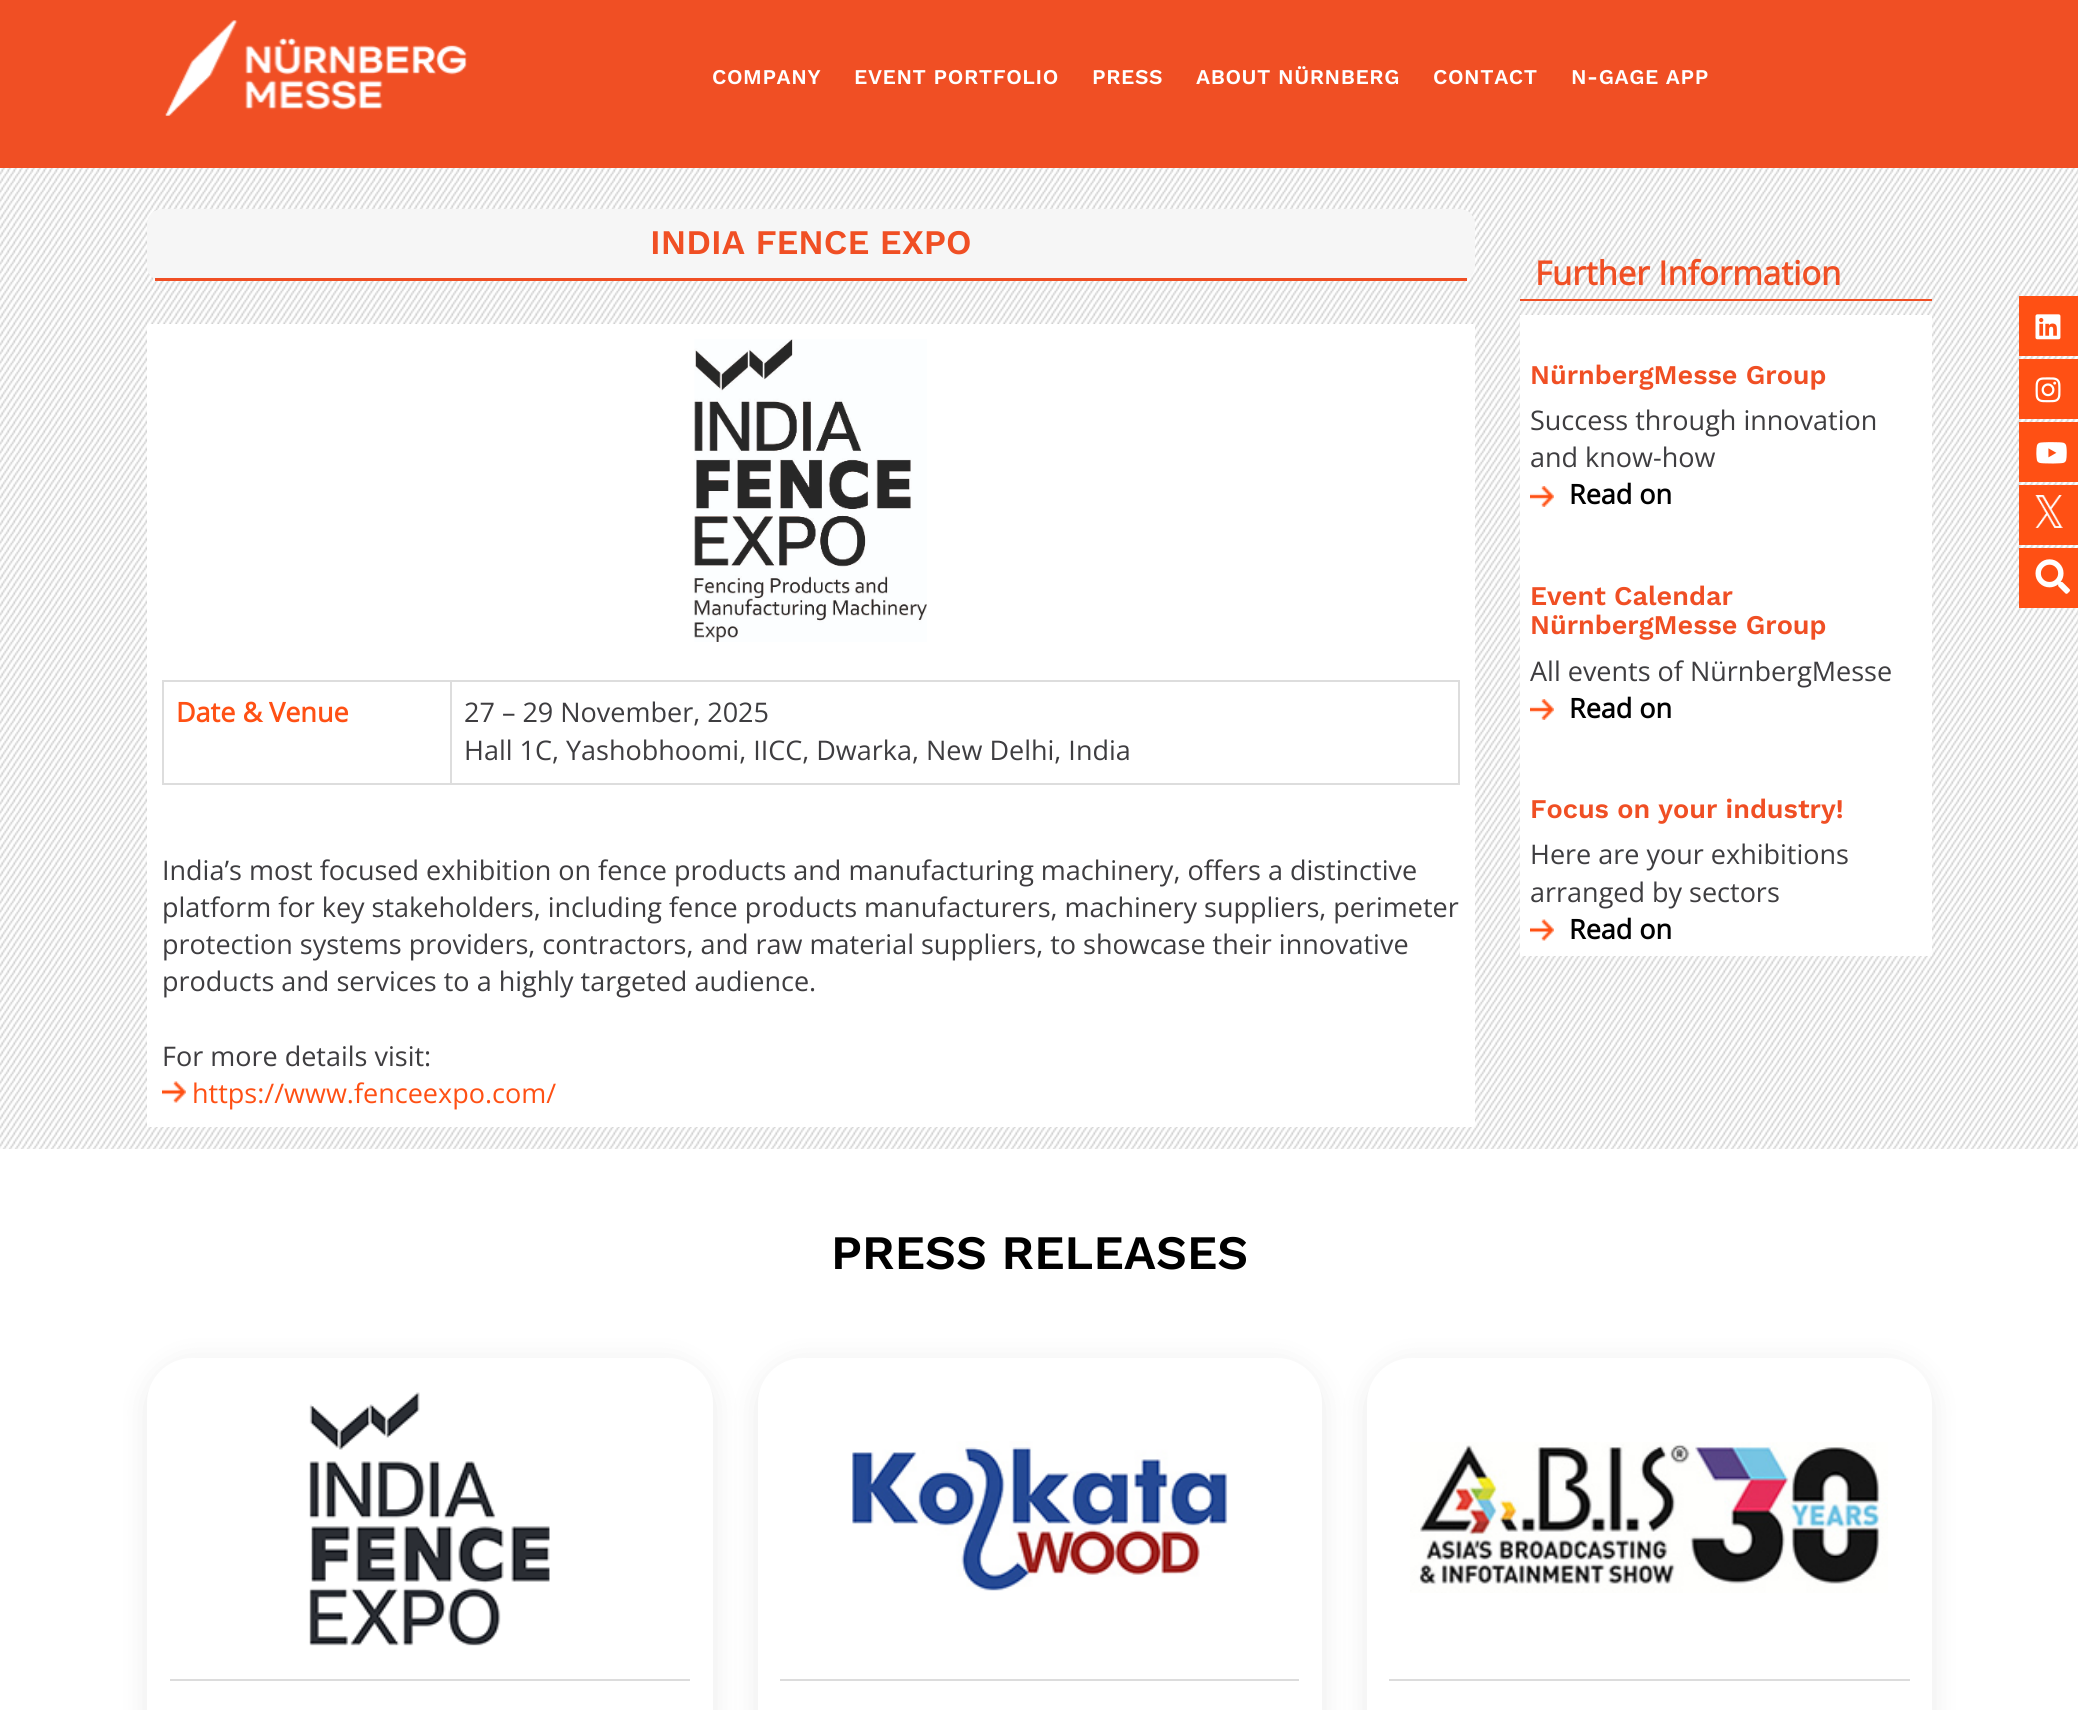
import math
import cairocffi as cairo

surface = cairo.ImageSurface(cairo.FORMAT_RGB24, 2078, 1710)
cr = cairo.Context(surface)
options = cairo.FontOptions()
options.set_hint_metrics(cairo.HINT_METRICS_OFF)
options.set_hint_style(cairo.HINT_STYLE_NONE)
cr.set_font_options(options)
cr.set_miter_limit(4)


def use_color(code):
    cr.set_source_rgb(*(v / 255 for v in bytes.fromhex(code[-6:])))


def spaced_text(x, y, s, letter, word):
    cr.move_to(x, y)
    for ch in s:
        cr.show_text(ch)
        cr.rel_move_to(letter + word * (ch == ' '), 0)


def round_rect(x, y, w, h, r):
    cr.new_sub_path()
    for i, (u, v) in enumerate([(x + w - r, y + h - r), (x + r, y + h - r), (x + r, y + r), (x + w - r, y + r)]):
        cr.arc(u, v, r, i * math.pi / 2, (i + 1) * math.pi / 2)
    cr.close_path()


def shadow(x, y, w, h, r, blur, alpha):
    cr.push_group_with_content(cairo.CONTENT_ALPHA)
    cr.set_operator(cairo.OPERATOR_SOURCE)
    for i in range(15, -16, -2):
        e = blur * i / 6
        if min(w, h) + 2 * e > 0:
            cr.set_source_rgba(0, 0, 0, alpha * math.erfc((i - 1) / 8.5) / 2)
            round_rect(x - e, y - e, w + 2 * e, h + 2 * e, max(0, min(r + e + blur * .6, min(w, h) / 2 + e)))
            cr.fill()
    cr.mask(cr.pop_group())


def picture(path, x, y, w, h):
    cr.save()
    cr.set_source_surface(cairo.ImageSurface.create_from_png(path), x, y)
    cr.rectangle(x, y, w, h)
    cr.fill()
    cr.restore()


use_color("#ffffff")
cr.paint()
picture("img1.png", 0, 168, 2078, 981)
use_color("#f04f24")
cr.rectangle(0, 0, 2078, 168)
cr.fill()
picture("img2.png", 165, 20, 302, 96)
cr.select_font_face("Work Sans SemiBold")
cr.set_font_size(21)
use_color("#ffffff")
spaced_text(712, 84, "COMPANY", 0.6, 0)
spaced_text(854, 84, "EVENT PORTFOLIO", 0.6, 0)
spaced_text(1092, 84, "PRESS", 0.6, 0)
spaced_text(1196, 84, "ABOUT NÜRNBERG", 0.6, 0)
spaced_text(1433, 84, "CONTACT", 0.6, 0)
spaced_text(1571, 84, "N-GAGE APP", 0.6, 0)
use_color("#f6f6f6")
round_rect(147, 209, 1328, 72, 15)
cr.fill()
use_color("#f04f24")
cr.rectangle(155, 278, 1312, 3)
cr.fill()
cr.set_font_size(34.5)
cr.move_to(650, 254)
cr.show_text("INDIA FENCE EXPO")
use_color("#ffffff")
cr.rectangle(147, 324, 1328, 803)
cr.fill()
picture("img3.png", 694, 339, 233, 303)
use_color("#dddddd")
cr.rectangle(162, 680, 1298, 2)
cr.fill()
cr.rectangle(1458, 680, 2, 105)
cr.fill()
cr.rectangle(162, 783, 1298, 2)
cr.fill()
cr.rectangle(162, 680, 2, 105)
cr.fill()
cr.select_font_face("Open Sans", cairo.FONT_SLANT_NORMAL, cairo.FONT_WEIGHT_BOLD)
cr.set_font_size(27)
use_color("#ff5014")
cr.move_to(176, 722)
cr.show_text("Date & Venue")
use_color("#dddddd")
cr.rectangle(450, 680, 2, 105)
cr.fill()
cr.select_font_face("Open Sans")
use_color("#3e3d40")
cr.move_to(464, 722)
cr.show_text("27 – 29 November, 2025")
cr.move_to(464, 760)
cr.show_text("Hall 1C, Yashobhoomi, IICC, Dwarka, New Delhi, India")
cr.move_to(162, 880)
cr.show_text("India’s most focused exhibition on fence products and manufacturing machinery, offers a distinctive")
cr.move_to(162, 917)
cr.show_text("platform for key stakeholders, including fence products manufacturers, machinery suppliers, perimeter")
cr.move_to(162, 954)
cr.show_text("protection systems providers, contractors, and raw material suppliers, to showcase their innovative")
cr.move_to(162, 991)
cr.show_text("products and services to a highly targeted audience.")
cr.move_to(162, 1066)
cr.show_text("For more details visit:")
picture("img4.png", 162, 1081, 24, 22)
use_color("#ff5014")
cr.move_to(192, 1103)
cr.show_text("https://www.fenceexpo.com/")
use_color("#f04e23")
cr.rectangle(1520, 299, 412, 2)
cr.fill()
cr.select_font_face("Open Sans", cairo.FONT_SLANT_NORMAL, cairo.FONT_WEIGHT_BOLD)
cr.set_font_size(33)
use_color("#f04f24")
cr.move_to(1535, 285)
cr.show_text("Further Information")
use_color("#ffffff")
cr.rectangle(1520, 315, 412, 641)
cr.fill()
cr.select_font_face("Work Sans SemiBold")
cr.set_font_size(27)
use_color("#f04f24")
cr.move_to(1530, 384)
cr.show_text("NürnbergMesse Group")
cr.select_font_face("Open Sans")
use_color("#3e3d40")
cr.move_to(1530, 430)
cr.show_text("Success through innovation")
cr.move_to(1530, 467)
cr.show_text("and know-how")
picture("img5.png", 1530, 486, 24, 21)
cr.select_font_face("Open Sans", cairo.FONT_SLANT_NORMAL, cairo.FONT_WEIGHT_BOLD)
use_color("#000000")
cr.move_to(1569, 504)
cr.show_text("Read on")
cr.select_font_face("Work Sans SemiBold")
use_color("#f04f24")
cr.move_to(1530, 605)
cr.show_text("Event Calendar")
cr.move_to(1530, 634)
cr.show_text("NürnbergMesse Group")
cr.select_font_face("Open Sans")
use_color("#3e3d40")
cr.move_to(1530, 681)
cr.show_text("All events of NürnbergMesse")
picture("img5.png", 1530, 699, 24, 21)
cr.select_font_face("Open Sans", cairo.FONT_SLANT_NORMAL, cairo.FONT_WEIGHT_BOLD)
use_color("#000000")
cr.move_to(1569, 718)
cr.show_text("Read on")
cr.select_font_face("Work Sans SemiBold")
use_color("#f04f24")
cr.move_to(1530, 818)
cr.show_text("Focus on your industry!")
cr.select_font_face("Open Sans")
use_color("#3e3d40")
cr.move_to(1530, 864)
cr.show_text("Here are your exhibitions")
cr.move_to(1530, 902)
cr.show_text("arranged by sectors")
picture("img4.png", 1530, 919, 24, 22)
cr.select_font_face("Open Sans", cairo.FONT_SLANT_NORMAL, cairo.FONT_WEIGHT_BOLD)
use_color("#000000")
cr.move_to(1569, 939)
cr.show_text("Read on")
cr.select_font_face("Work Sans SemiBold")
cr.set_font_size(48)
cr.move_to(831, 1269)
cr.show_text("PRESS RELEASES")
use_color("#000000")
shadow(150, 1365, 560, 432, 42, 15, 0.1)
use_color("#ffffff")
round_rect(147, 1358, 566, 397, 45)
cr.fill()
use_color("#dcdcdc")
cr.rectangle(170, 1679, 520, 2)
cr.fill()
picture("img6.png", 309, 1392, 241, 254)
use_color("#000000")
shadow(761, 1365, 558, 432, 42, 15, 0.1)
use_color("#ffffff")
round_rect(758, 1358, 564, 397, 45)
cr.fill()
use_color("#dcdcdc")
cr.rectangle(780, 1679, 519, 2)
cr.fill()
picture("img7.png", 852, 1441, 376, 150)
use_color("#000000")
shadow(1370, 1365, 559, 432, 42, 15, 0.1)
use_color("#ffffff")
round_rect(1367, 1358, 565, 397, 45)
cr.fill()
use_color("#dcdcdc")
cr.rectangle(1389, 1679, 521, 2)
cr.fill()
picture("img8.png", 1410, 1442, 478, 151)
use_color("#ff5014")
cr.rectangle(2019, 296, 59, 60)
cr.fill()
picture("img9.png", 2035, 314, 26, 26)
cr.rectangle(2019, 359, 59, 60)
cr.fill()
picture("img10.png", 2035, 377, 26, 26)
cr.rectangle(2019, 422, 59, 60)
cr.fill()
picture("img11.png", 2036, 442, 31, 22)
cr.rectangle(2019, 485, 59, 60)
cr.fill()
picture("img12.png", 2035, 495, 28, 33)
cr.rectangle(2019, 548, 59, 60)
cr.fill()
picture("img13.png", 2035, 559, 35, 35)
surface.write_to_png("result.png")
